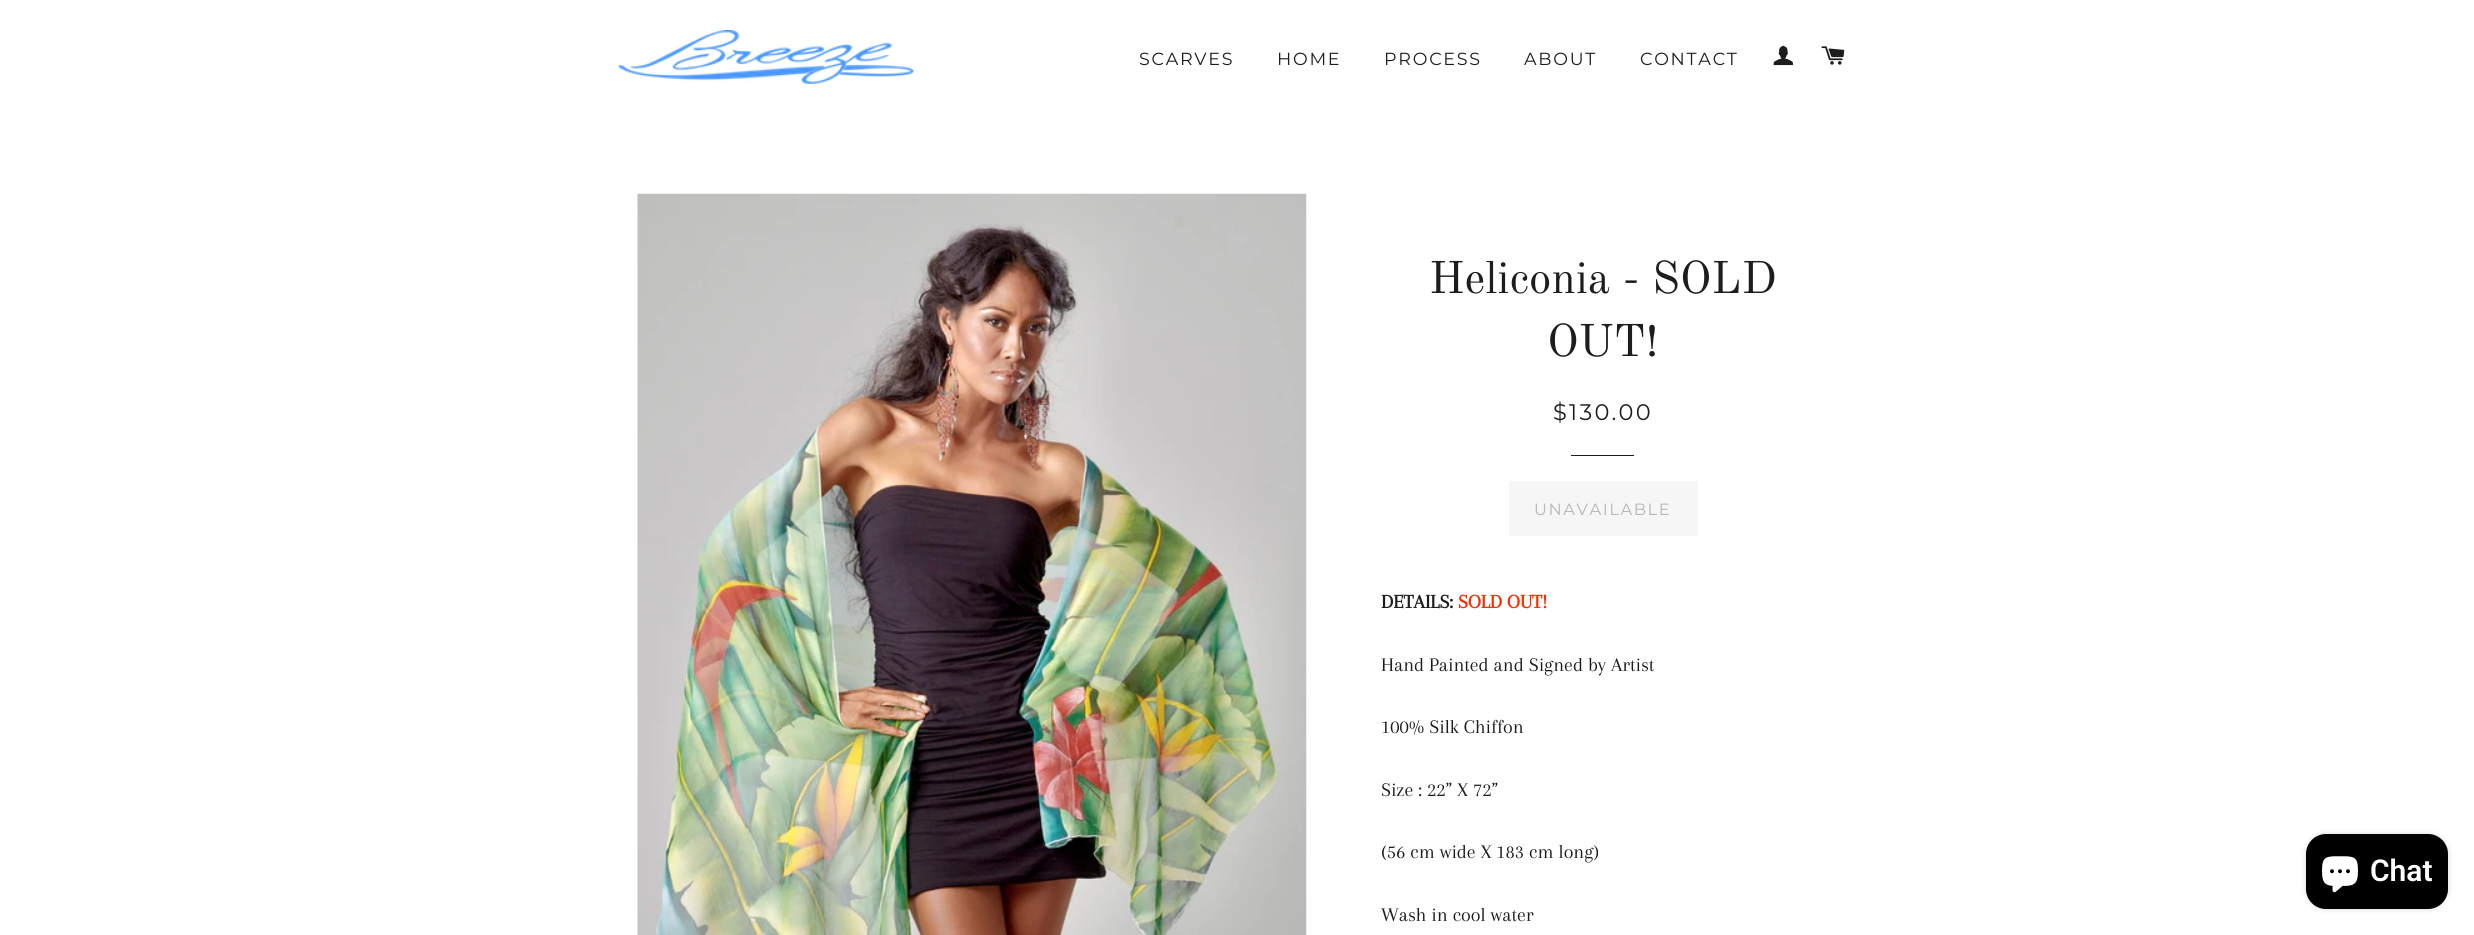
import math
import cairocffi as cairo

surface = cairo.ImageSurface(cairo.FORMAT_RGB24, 2474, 935)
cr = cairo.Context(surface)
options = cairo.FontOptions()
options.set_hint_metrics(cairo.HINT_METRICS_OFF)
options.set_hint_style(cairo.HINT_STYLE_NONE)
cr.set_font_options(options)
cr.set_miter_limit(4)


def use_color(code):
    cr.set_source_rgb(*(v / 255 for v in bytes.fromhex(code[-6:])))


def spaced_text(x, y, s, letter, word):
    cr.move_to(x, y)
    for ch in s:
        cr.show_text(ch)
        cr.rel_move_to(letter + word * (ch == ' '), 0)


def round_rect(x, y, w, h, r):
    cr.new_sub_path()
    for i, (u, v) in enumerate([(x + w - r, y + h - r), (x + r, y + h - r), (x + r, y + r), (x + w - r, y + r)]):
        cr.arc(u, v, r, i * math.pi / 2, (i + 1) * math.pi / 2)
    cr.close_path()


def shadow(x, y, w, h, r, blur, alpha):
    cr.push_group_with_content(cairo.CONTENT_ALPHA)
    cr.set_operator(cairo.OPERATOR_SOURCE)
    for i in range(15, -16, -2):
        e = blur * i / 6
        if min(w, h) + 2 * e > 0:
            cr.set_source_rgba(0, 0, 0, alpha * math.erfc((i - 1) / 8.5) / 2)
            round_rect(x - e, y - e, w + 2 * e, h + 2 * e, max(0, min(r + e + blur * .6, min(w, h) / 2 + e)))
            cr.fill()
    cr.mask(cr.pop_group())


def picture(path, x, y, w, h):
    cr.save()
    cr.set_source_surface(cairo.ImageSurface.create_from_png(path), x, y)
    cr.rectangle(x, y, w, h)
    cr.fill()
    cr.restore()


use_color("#ffffff")
cr.paint()
picture("img1.png", 618, 30, 296, 54)
cr.select_font_face("Montserrat Thin")
cr.set_font_size(17.5)
use_color("#1c1d1d")
spaced_text(1139, 65, "SCARVES", 1.75, 0)
spaced_text(1277, 65, "HOME", 1.75, 0)
spaced_text(1384, 65, "PROCESS", 1.75, 0)
spaced_text(1524, 65, "ABOUT", 1.75, 0)
spaced_text(1640, 65, "CONTACT", 1.75, 0)
picture("img2.png", 1773, 45, 20, 21)
picture("img3.png", 1821, 46, 24, 19)
picture("img4.png", 637, 193, 670, 742)
cr.select_font_face("Old Standard TT")
cr.set_font_size(45)
cr.move_to(1429, 293)
cr.show_text("Heliconia - SOLD")
cr.move_to(1547, 356)
cr.show_text("OUT!")
cr.select_font_face("Montserrat Thin")
cr.set_font_size(22.5)
spaced_text(1553, 420, "$130.00", 2.25, 0)
cr.rectangle(1571, 455, 63, 1)
cr.fill()
use_color("#f6f6f6")
cr.rectangle(1509, 481, 189, 55)
cr.fill()
cr.set_font_size(16.25)
use_color("#b6b6b6")
spaced_text(1534, 515, "UNAVAILABLE", 1.6, 0)
cr.select_font_face("Arapey", cairo.FONT_SLANT_NORMAL, cairo.FONT_WEIGHT_BOLD)
cr.set_font_size(20)
use_color("#1c1d1d")
cr.move_to(1381, 608)
cr.show_text("DETAILS:")
use_color("#ff2a00")
cr.move_to(1458, 608)
cr.show_text("SOLD OUT!")
cr.select_font_face("Arapey")
use_color("#1c1d1d")
cr.move_to(1381, 671)
cr.show_text("Hand Painted and Signed by Artist")
cr.move_to(1381, 733)
cr.show_text("100% Silk Chiffon")
cr.move_to(1381, 796)
cr.show_text("Size : 22” X 72”")
cr.move_to(1381, 858)
cr.show_text("(56 cm wide X 183 cm long)")
cr.move_to(1381, 921)
cr.show_text("Wash in cool water")
use_color("#000000")
shadow(2306, 834, 142, 75, 20, 3, 0.15)
use_color("#000000")
round_rect(2306, 834, 142, 75, 20)
cr.fill()
picture("img5.png", 2322, 856, 36, 37)
cr.select_font_face("Roboto SemiBold")
cr.set_font_size(30)
use_color("#ffffff")
cr.move_to(2370, 881)
cr.show_text("Chat")
surface.write_to_png("result.png")
